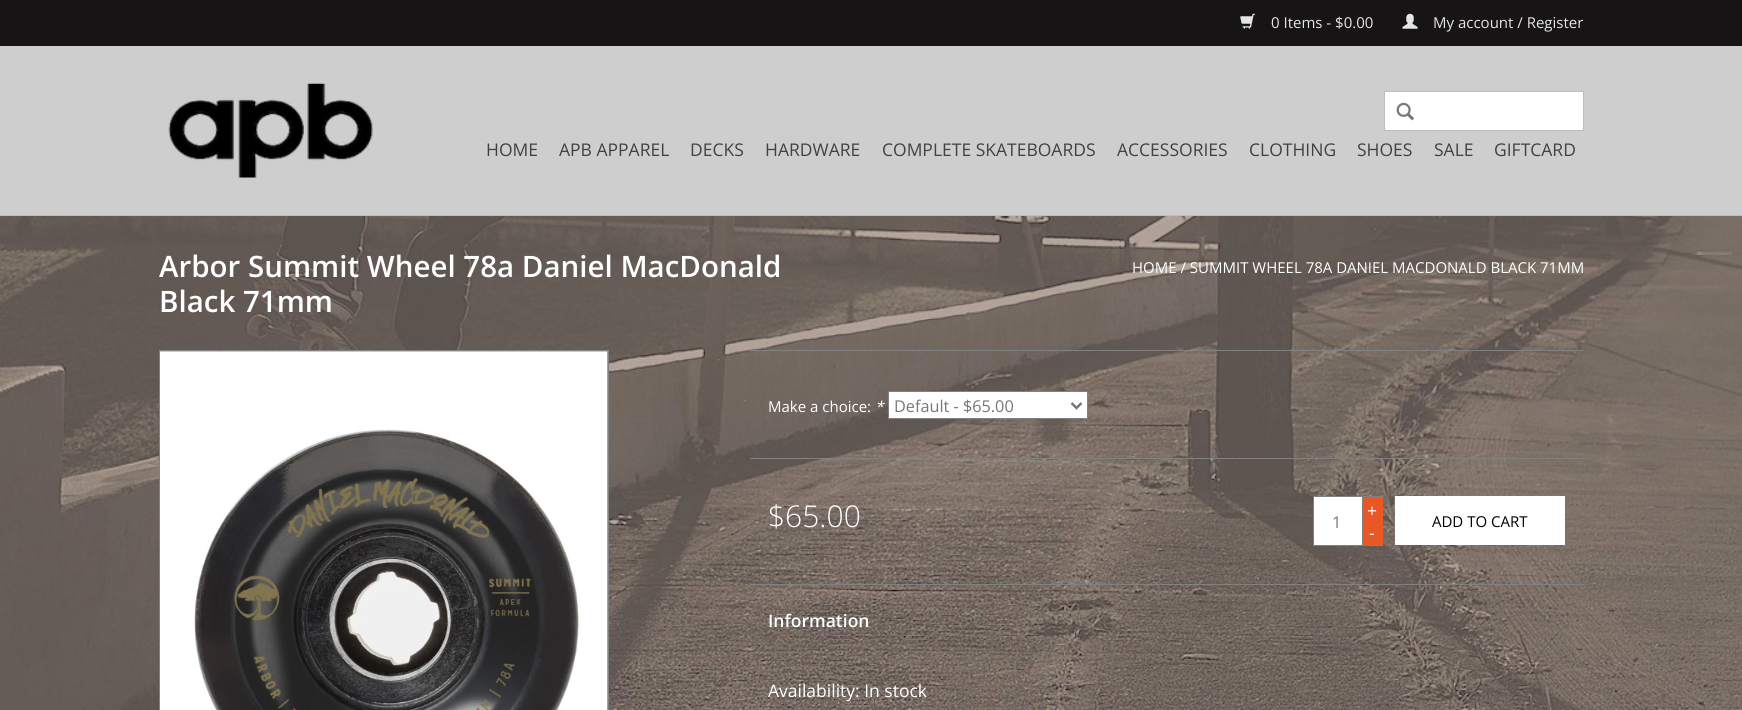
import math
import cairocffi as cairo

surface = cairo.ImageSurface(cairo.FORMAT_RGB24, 1742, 710)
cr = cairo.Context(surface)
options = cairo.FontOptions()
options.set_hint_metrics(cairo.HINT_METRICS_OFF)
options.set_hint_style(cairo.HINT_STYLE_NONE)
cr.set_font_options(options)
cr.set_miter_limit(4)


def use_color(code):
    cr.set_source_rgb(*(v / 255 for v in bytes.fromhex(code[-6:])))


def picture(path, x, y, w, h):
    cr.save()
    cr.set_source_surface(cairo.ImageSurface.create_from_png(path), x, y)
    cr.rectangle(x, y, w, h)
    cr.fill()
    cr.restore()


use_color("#ffffff")
cr.paint()
picture("img1.png", 0, 216, 1742, 494)
use_color("#cecece")
cr.rectangle(0, 46, 1742, 169)
cr.fill()
use_color("#bdbdbd")
cr.rectangle(0, 215, 1742, 1)
cr.fill()
use_color("#161414")
cr.rectangle(0, 0, 1742, 45)
cr.fill()
use_color("#141212")
cr.rectangle(0, 45, 1742, 1)
cr.fill()
picture("img2.png", 1240, 13, 15, 16)
cr.select_font_face("Open Sans")
cr.set_font_size(15)
use_color("#e5e5e5")
cr.move_to(1271, 28)
cr.show_text("0 Items - $0.00")
picture("img3.png", 1402, 13, 16, 16)
cr.move_to(1433, 28)
cr.show_text("My account / Register")
picture("img4.png", 168, 83, 205, 95)
use_color("#ffffff")
cr.rectangle(1384.5, 91.5, 199, 39)
cr.fill_preserve()
use_color("#bdbdbd")
cr.set_line_width(1)
cr.stroke()
picture("img5.png", 1396, 102, 18, 19)
cr.set_font_size(17.5)
use_color("#414141")
cr.move_to(486, 156)
cr.show_text("HOME")
cr.move_to(559, 156)
cr.show_text("APB APPAREL")
cr.move_to(690, 156)
cr.show_text("DECKS")
cr.move_to(765, 156)
cr.show_text("HARDWARE")
cr.move_to(882, 156)
cr.show_text("COMPLETE SKATEBOARDS")
cr.move_to(1117, 156)
cr.show_text("ACCESSORIES")
cr.move_to(1249, 156)
cr.show_text("CLOTHING")
cr.move_to(1357, 156)
cr.show_text("SHOES")
cr.move_to(1434, 156)
cr.show_text("SALE")
cr.move_to(1494, 156)
cr.show_text("GIFTCARD")
cr.select_font_face("Open Sans SemiBold")
cr.set_font_size(29.5)
use_color("#ffffff")
cr.move_to(159, 277)
cr.show_text("Arbor Summit Wheel 78a Daniel MacDonald")
cr.move_to(159, 312)
cr.show_text("Black 71mm")
cr.select_font_face("Open Sans")
cr.set_font_size(15)
cr.move_to(1132, 273)
cr.show_text("HOME / SUMMIT WHEEL 78A DANIEL MACDONALD BLACK 71MM")
cr.rectangle(159.5, 350.5, 449, 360)
use_color("#818181")
cr.stroke()
use_color("#888888")
cr.rectangle(160, 351, 448, 359)
cr.fill()
picture("img6.png", 160, 351, 448, 359)
use_color("#818181")
cr.rectangle(750, 350, 834, 1)
cr.fill()
use_color("#ffffff")
cr.move_to(768, 412)
cr.show_text("Make a choice:")
cr.select_font_face("Open Sans", cairo.FONT_SLANT_ITALIC)
cr.move_to(875, 412)
cr.show_text("*")
cr.rectangle(888.5, 391.5, 199, 27)
cr.fill_preserve()
use_color("#818181")
cr.stroke()
cr.new_path()
cr.move_to(1071.5, 403)
cr.line_to(1076.5, 408)
cr.line_to(1081.5, 403)
use_color("#777777")
cr.set_line_width(2.5)
cr.stroke()
cr.select_font_face("Open Sans")
cr.set_font_size(16.25)
cr.move_to(894, 412)
cr.show_text("Default - $65.00")
use_color("#818181")
cr.rectangle(750, 458, 834, 1)
cr.fill()
cr.select_font_face("Open Sans Light")
cr.set_font_size(30)
use_color("#ffffff")
cr.move_to(768, 527)
cr.show_text("$65.00")
cr.rectangle(1313.5, 496.5, 49, 49)
cr.fill_preserve()
use_color("#818181")
cr.set_line_width(1)
cr.stroke()
cr.select_font_face("Open Sans")
cr.set_font_size(16.25)
use_color("#777777")
cr.move_to(1332, 528)
cr.show_text("1")
use_color("#eb5625")
cr.rectangle(1363, 497, 20, 48)
cr.fill()
use_color("#818181")
cr.rectangle(1363, 496, 20, 1)
cr.fill()
cr.rectangle(1381, 496, 1, 50)
cr.fill()
cr.rectangle(1363, 545, 20, 1)
cr.fill()
cr.set_font_size(17.5)
use_color("#ffffff")
cr.move_to(1367, 517)
cr.show_text("+")
cr.move_to(1369, 539)
cr.show_text("-")
cr.rectangle(1395, 496, 170, 49)
cr.fill()
cr.set_font_size(15)
use_color("#000000")
cr.move_to(1432, 527)
cr.show_text("ADD TO CART")
use_color("#818181")
cr.rectangle(750, 584, 834, 1)
cr.fill()
cr.select_font_face("Open Sans SemiBold")
cr.set_font_size(17.5)
use_color("#ffffff")
cr.move_to(768, 627)
cr.show_text("Information")
cr.select_font_face("Open Sans")
cr.move_to(768, 697)
cr.show_text("Availability: In stock")
surface.write_to_png("result.png")
